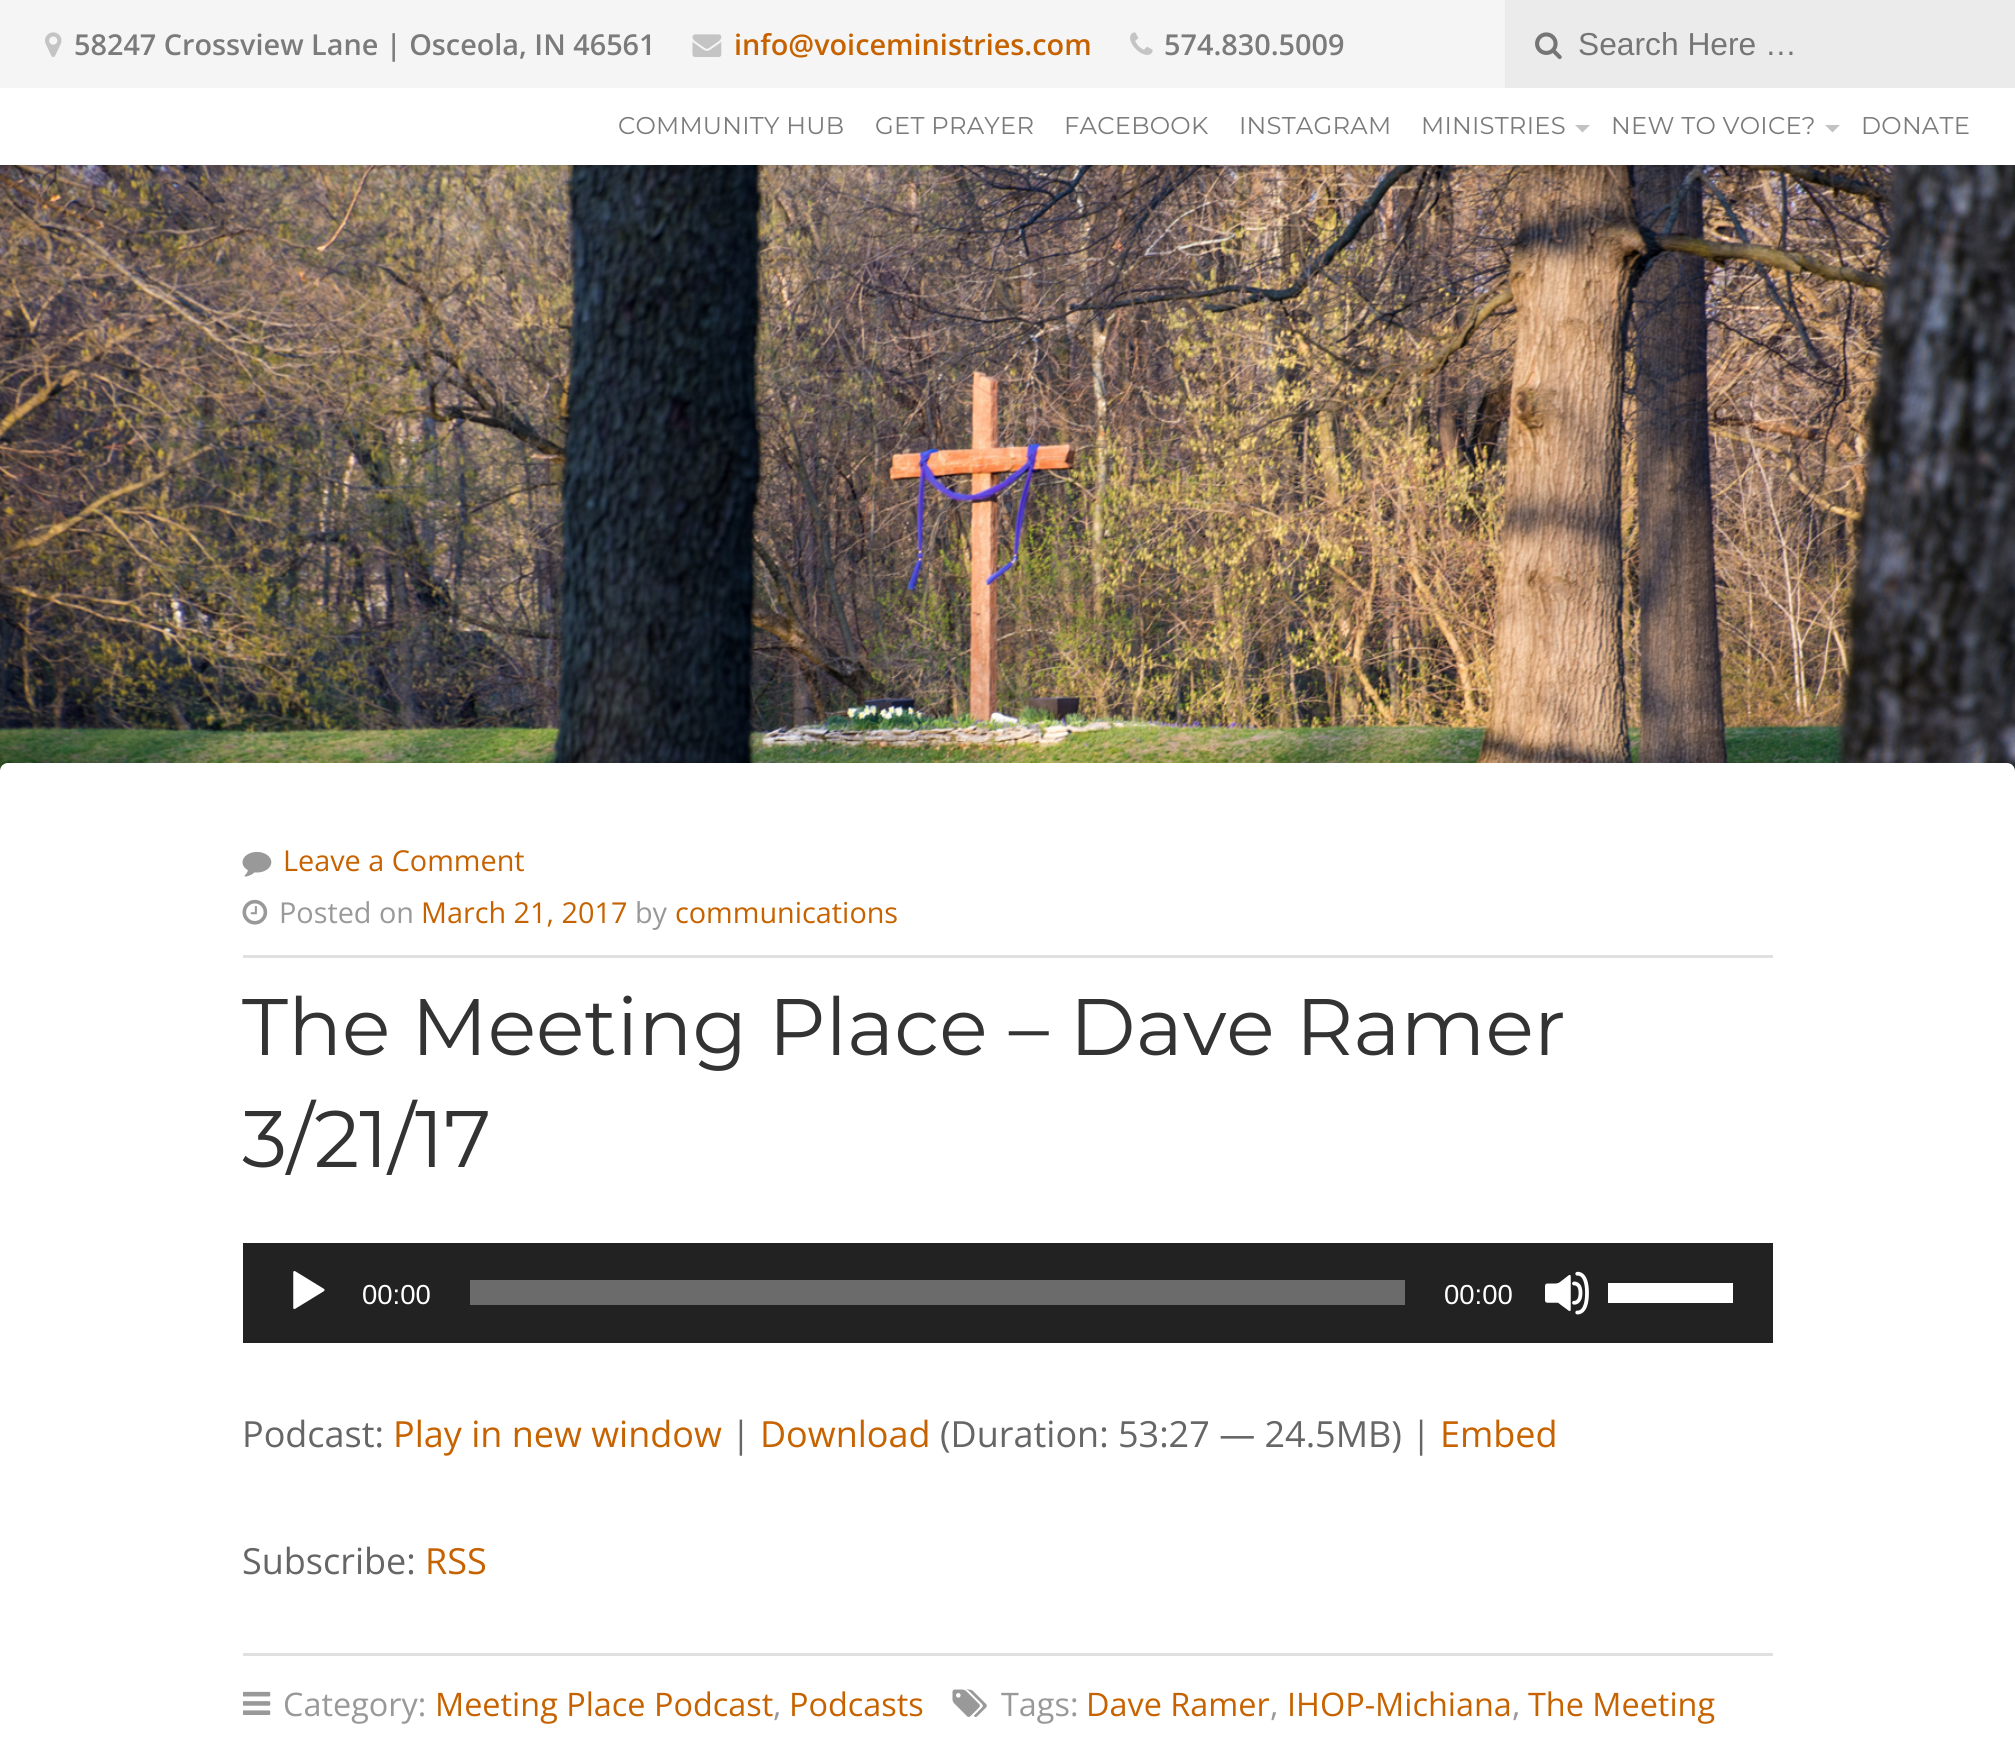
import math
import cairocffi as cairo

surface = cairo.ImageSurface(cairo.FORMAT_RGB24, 2015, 1763)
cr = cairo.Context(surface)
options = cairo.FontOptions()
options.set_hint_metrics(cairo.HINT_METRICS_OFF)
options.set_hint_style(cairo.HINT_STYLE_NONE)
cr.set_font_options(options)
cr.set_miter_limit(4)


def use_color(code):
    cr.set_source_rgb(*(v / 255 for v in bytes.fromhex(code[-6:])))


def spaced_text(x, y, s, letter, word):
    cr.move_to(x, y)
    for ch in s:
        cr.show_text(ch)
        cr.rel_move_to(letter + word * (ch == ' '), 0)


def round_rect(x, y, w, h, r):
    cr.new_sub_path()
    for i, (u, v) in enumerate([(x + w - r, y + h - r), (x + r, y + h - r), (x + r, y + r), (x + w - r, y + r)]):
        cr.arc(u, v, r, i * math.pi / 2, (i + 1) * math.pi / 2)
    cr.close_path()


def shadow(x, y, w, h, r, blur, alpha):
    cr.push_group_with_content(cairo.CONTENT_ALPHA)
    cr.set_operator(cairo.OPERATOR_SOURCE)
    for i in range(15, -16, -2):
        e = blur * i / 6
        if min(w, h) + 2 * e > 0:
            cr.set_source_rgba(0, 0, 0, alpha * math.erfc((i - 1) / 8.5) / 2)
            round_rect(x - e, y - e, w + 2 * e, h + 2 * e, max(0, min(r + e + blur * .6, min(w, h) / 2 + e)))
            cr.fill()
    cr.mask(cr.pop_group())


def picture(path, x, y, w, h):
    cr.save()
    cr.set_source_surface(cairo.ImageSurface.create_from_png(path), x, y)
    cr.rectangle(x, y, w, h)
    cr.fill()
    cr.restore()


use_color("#ffffff")
cr.paint()
picture("img5.png", 0, 165, 2015, 606)
use_color("#000000")
shadow(0, 0, 2015, 165, 0, 7.5, 0.24)
use_color("#ffffff")
cr.rectangle(0, 88, 2015, 77)
cr.fill()
use_color("#f5f5f5")
cr.rectangle(0, 0, 1505, 88)
cr.fill()
picture("img1.png", 45, 32, 17, 25)
cr.select_font_face("Open Sans SemiBold")
cr.set_font_size(28.8)
use_color("#7b7b7b")
cr.move_to(74, 55)
cr.show_text("58247 Crossview Lane | Osceola, IN 46561")
picture("img2.png", 692, 34, 30, 23)
use_color("#c66300")
cr.move_to(734, 55)
cr.show_text("info@voiceministries.com")
picture("img3.png", 1130, 32, 23, 23)
use_color("#7b7b7b")
cr.move_to(1164, 55)
cr.show_text("574.830.5009")
use_color("#ebebeb")
cr.rectangle(1505, 0, 510, 88)
cr.fill()
picture("img4.png", 1535, 32, 27, 28)
cr.select_font_face("Liberation Sans")
cr.set_font_size(31.75)
use_color("#757575")
cr.move_to(1578, 55)
cr.show_text("Search Here …")
cr.select_font_face("Montserrat")
cr.set_font_size(24.25)
use_color("#7b7b7b")
spaced_text(618, 134, "COMMUNITY HUB", 0.25, 0)
spaced_text(875, 134, "GET PRAYER", 0.25, 0)
spaced_text(1064, 134, "FACEBOOK", 0.25, 0)
spaced_text(1239, 134, "INSTAGRAM", 0.25, 0)
spaced_text(1421, 134, "MINISTRIES", 0.25, 0)
use_color("#c2c2c2")
cr.new_path()
cr.move_to(1575, 125)
cr.line_to(1590, 125)
cr.line_to(1582.5, 132.5)
cr.close_path()
cr.fill()
use_color("#7b7b7b")
spaced_text(1611, 134, "NEW TO VOICE?", 0.25, 0)
use_color("#c2c2c2")
cr.new_path()
cr.move_to(1825, 125)
cr.line_to(1840, 125)
cr.line_to(1832.5, 132.5)
cr.close_path()
cr.fill()
use_color("#7b7b7b")
spaced_text(1861, 134, "DONATE", 0.25, 0)
use_color("#000000")
shadow(0, 763, 2015, 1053, 8, 15, 0.12)
use_color("#ffffff")
round_rect(0, 763, 2015, 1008, 8)
cr.fill()
use_color("#e0e0e0")
cr.rectangle(243, 955, 1530, 3)
cr.fill()
picture("img6.png", 242, 851, 30, 26)
cr.select_font_face("Open Sans")
cr.set_font_size(28.8)
use_color("#c66300")
cr.move_to(283, 871)
cr.show_text("Leave a Comment")
picture("img7.png", 242, 899, 26, 26)
use_color("#999999")
cr.move_to(279, 923)
cr.show_text("Posted on")
use_color("#c66300")
cr.move_to(421, 923)
cr.show_text("March 21, 2017")
use_color("#999999")
cr.move_to(635, 923)
cr.show_text("by")
use_color("#c66300")
cr.move_to(675, 923)
cr.show_text("communications")
cr.select_font_face("Montserrat")
cr.set_font_size(80)
use_color("#333333")
cr.move_to(242, 1055)
cr.show_text("The Meeting Place – Dave Ramer")
cr.move_to(242, 1167)
cr.show_text("3/21/17")
use_color("#222222")
cr.rectangle(243, 1243, 1530, 100)
cr.fill()
picture("img8.png", 293, 1271, 32, 39)
cr.select_font_face("Liberation Sans")
cr.set_font_size(27.5)
use_color("#ffffff")
cr.move_to(362, 1304)
cr.show_text("00:00")
use_color("#6b6b6b")
cr.rectangle(470, 1280, 935, 25)
cr.fill()
use_color("#ffffff")
cr.move_to(1444, 1304)
cr.show_text("00:00")
picture("img9.png", 1545, 1271, 44, 44)
cr.rectangle(1608, 1283, 125, 20)
cr.fill()
cr.select_font_face("Open Sans")
cr.set_font_size(36)
use_color("#666666")
cr.move_to(242, 1447)
cr.show_text("Podcast:")
use_color("#c66300")
cr.move_to(393, 1447)
cr.show_text("Play in new window")
use_color("#666666")
cr.move_to(731, 1447)
cr.show_text("|")
use_color("#c66300")
cr.move_to(760, 1447)
cr.show_text("Download")
use_color("#666666")
cr.move_to(940, 1447)
cr.show_text("(Duration: 53:27 — 24.5MB) |")
use_color("#c66300")
cr.move_to(1440, 1447)
cr.show_text("Embed")
use_color("#666666")
cr.move_to(242, 1574)
cr.show_text("Subscribe:")
use_color("#c66300")
cr.move_to(425, 1574)
cr.show_text("RSS")
use_color("#e0e0e0")
cr.rectangle(243, 1653, 1530, 3)
cr.fill()
picture("img10.png", 243, 1691, 28, 24)
cr.set_font_size(32.4)
use_color("#999999")
cr.move_to(283, 1716)
cr.show_text("Category:")
use_color("#c66300")
cr.move_to(435, 1716)
cr.show_text("Meeting Place Podcast")
use_color("#999999")
cr.move_to(773, 1716)
cr.show_text(",")
use_color("#c66300")
cr.move_to(789, 1716)
cr.show_text("Podcasts")
picture("img11.png", 952, 1689, 35, 28)
use_color("#999999")
cr.move_to(1001, 1716)
cr.show_text("Tags:")
use_color("#c66300")
cr.move_to(1086, 1716)
cr.show_text("Dave Ramer")
use_color("#999999")
cr.move_to(1270, 1716)
cr.show_text(",")
use_color("#c66300")
cr.move_to(1287, 1716)
cr.show_text("IHOP-Michiana")
use_color("#999999")
cr.move_to(1512, 1716)
cr.show_text(",")
use_color("#c66300")
cr.move_to(1528, 1716)
cr.show_text("The Meeting")
surface.write_to_png("result.png")
